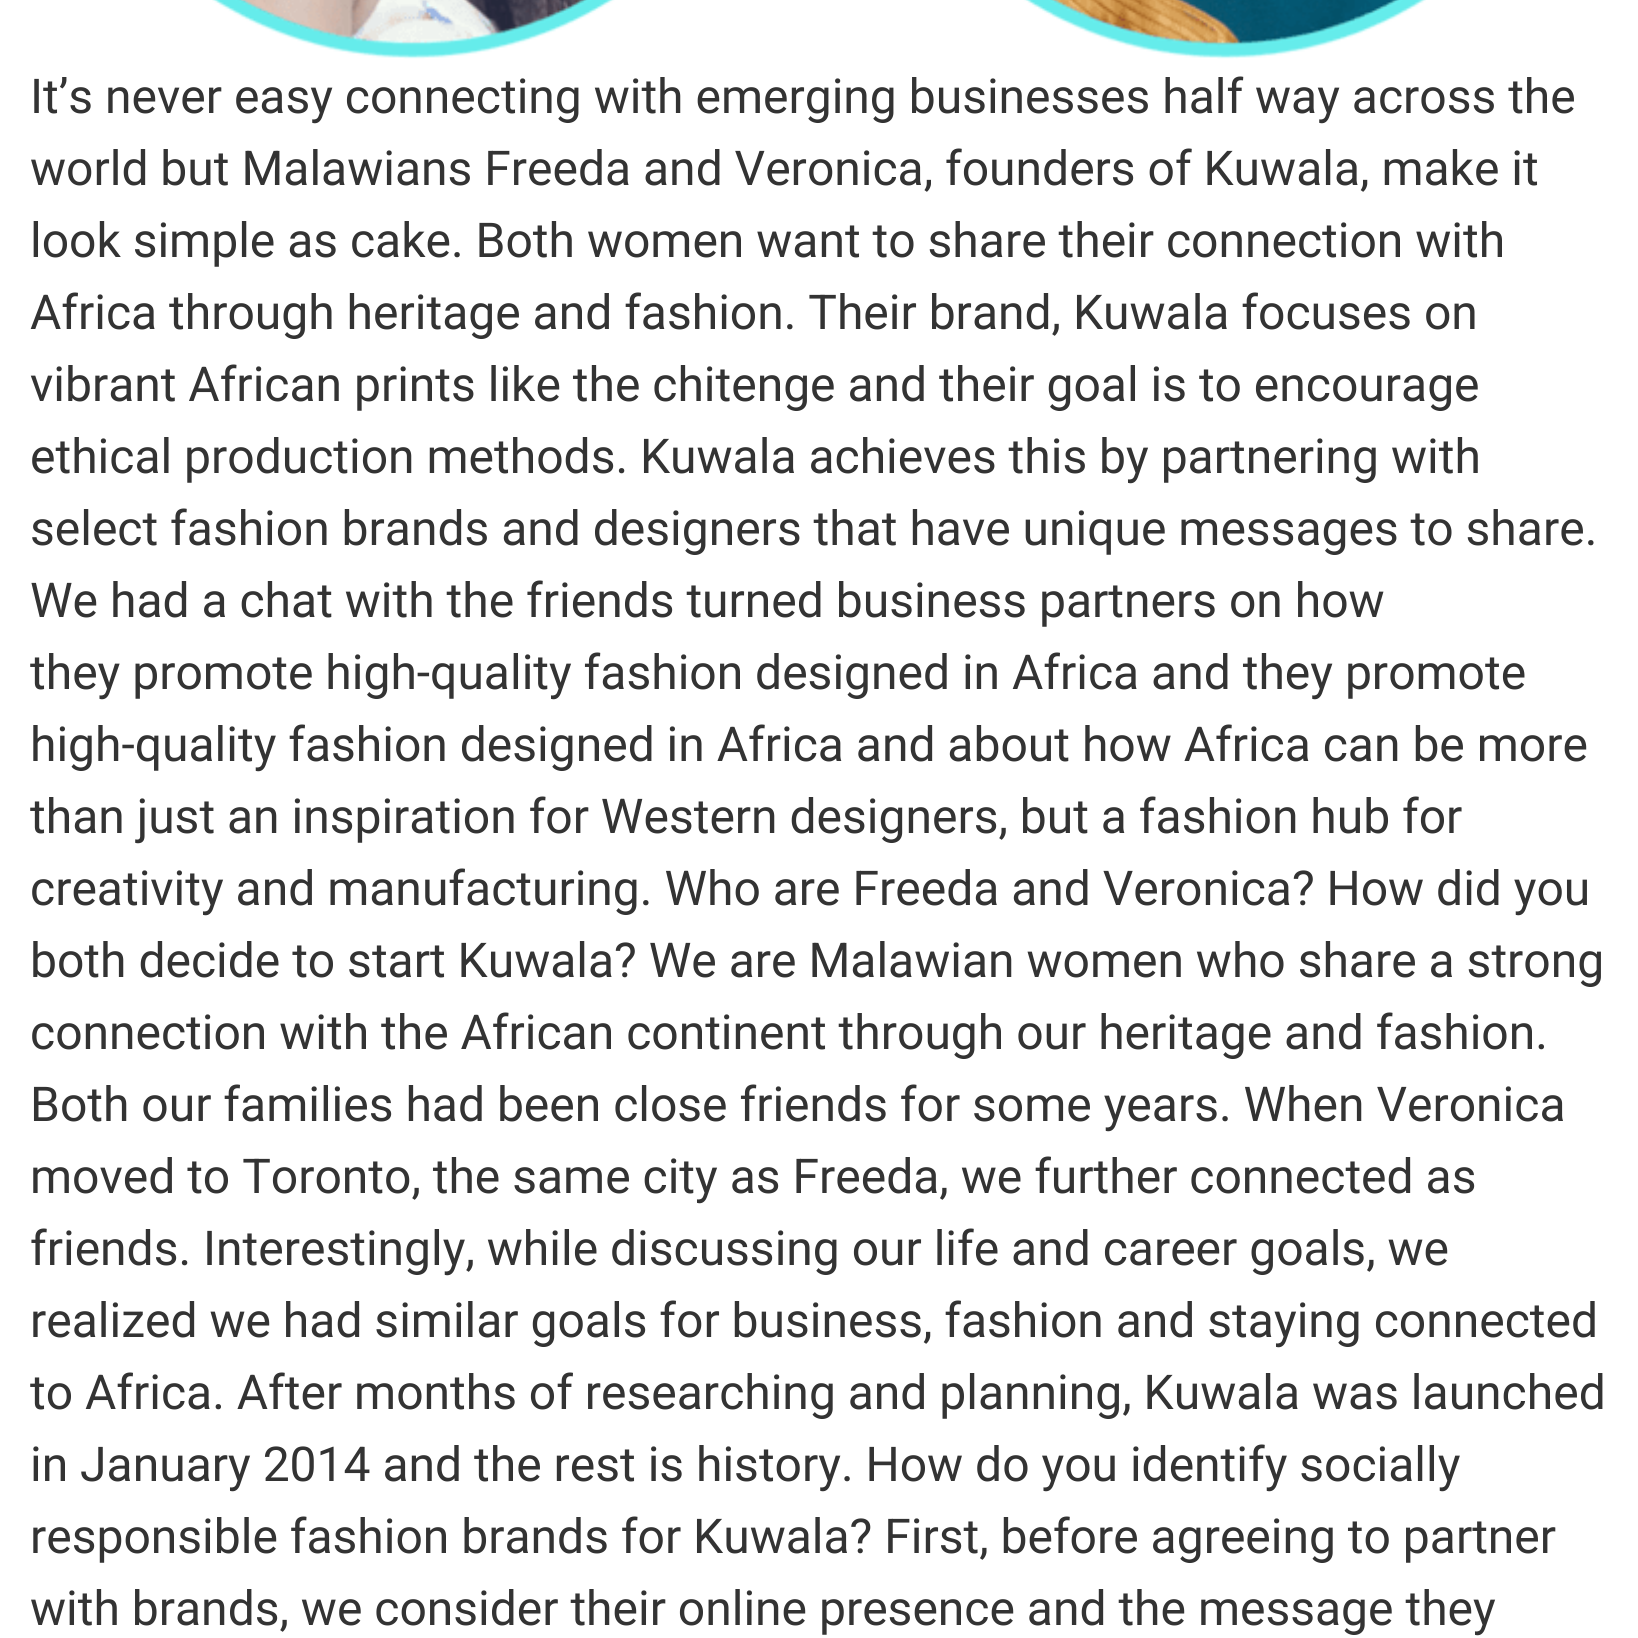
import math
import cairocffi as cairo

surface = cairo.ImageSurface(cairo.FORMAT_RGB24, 1638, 1638)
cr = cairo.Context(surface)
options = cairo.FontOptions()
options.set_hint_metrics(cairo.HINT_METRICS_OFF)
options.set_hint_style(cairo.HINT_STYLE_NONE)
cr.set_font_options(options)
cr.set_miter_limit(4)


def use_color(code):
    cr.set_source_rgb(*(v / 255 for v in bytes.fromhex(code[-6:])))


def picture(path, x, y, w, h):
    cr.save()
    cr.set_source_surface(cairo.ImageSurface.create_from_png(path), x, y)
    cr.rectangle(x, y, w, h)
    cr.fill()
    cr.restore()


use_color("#ffffff")
cr.paint()
picture("img1.png", 212, 0, 1214, 59)
cr.select_font_face("Roboto")
cr.set_font_size(48)
use_color("#333333")
cr.move_to(30, 113)
cr.show_text("It’s never easy connecting with emerging businesses half way across the")
cr.move_to(30, 185)
cr.show_text("world but Malawians Freeda and Veronica, founders of Kuwala, make it")
cr.move_to(30, 257)
cr.show_text("look simple as cake. Both women want to share their connection with")
cr.move_to(30, 329)
cr.show_text("Africa through heritage and fashion. Their brand, Kuwala focuses on")
cr.move_to(30, 401)
cr.show_text("vibrant African prints like the chitenge and their goal is to encourage")
cr.move_to(30, 473)
cr.show_text("ethical production methods. Kuwala achieves this by partnering with")
cr.move_to(30, 545)
cr.show_text("select fashion brands and designers that have unique messages to share.")
cr.move_to(30, 617)
cr.show_text("We had a chat with the friends turned business partners on how")
cr.move_to(30, 689)
cr.show_text("they promote high-quality fashion designed in Africa and they promote")
cr.move_to(30, 761)
cr.show_text("high-quality fashion designed in Africa and about how Africa can be more")
cr.move_to(30, 833)
cr.show_text("than just an inspiration for Western designers, but a fashion hub for")
cr.move_to(30, 905)
cr.show_text("creativity and manufacturing. Who are Freeda and Veronica? How did you")
cr.move_to(30, 977)
cr.show_text("both decide to start Kuwala? We are Malawian women who share a strong")
cr.move_to(30, 1049)
cr.show_text("connection with the African continent through our heritage and fashion.")
cr.move_to(30, 1121)
cr.show_text("Both our families had been close friends for some years. When Veronica")
cr.move_to(30, 1193)
cr.show_text("moved to Toronto, the same city as Freeda, we further connected as")
cr.move_to(30, 1265)
cr.show_text("friends. Interestingly, while discussing our life and career goals, we")
cr.move_to(30, 1337)
cr.show_text("realized we had similar goals for business, fashion and staying connected")
cr.move_to(30, 1409)
cr.show_text("to Africa. After months of researching and planning, Kuwala was launched")
cr.move_to(30, 1481)
cr.show_text("in January 2014 and the rest is history. How do you identify socially")
cr.move_to(30, 1553)
cr.show_text("responsible fashion brands for Kuwala? First, before agreeing to partner")
cr.move_to(30, 1625)
cr.show_text("with brands, we consider their online presence and the message they")
surface.write_to_png("result.png")
